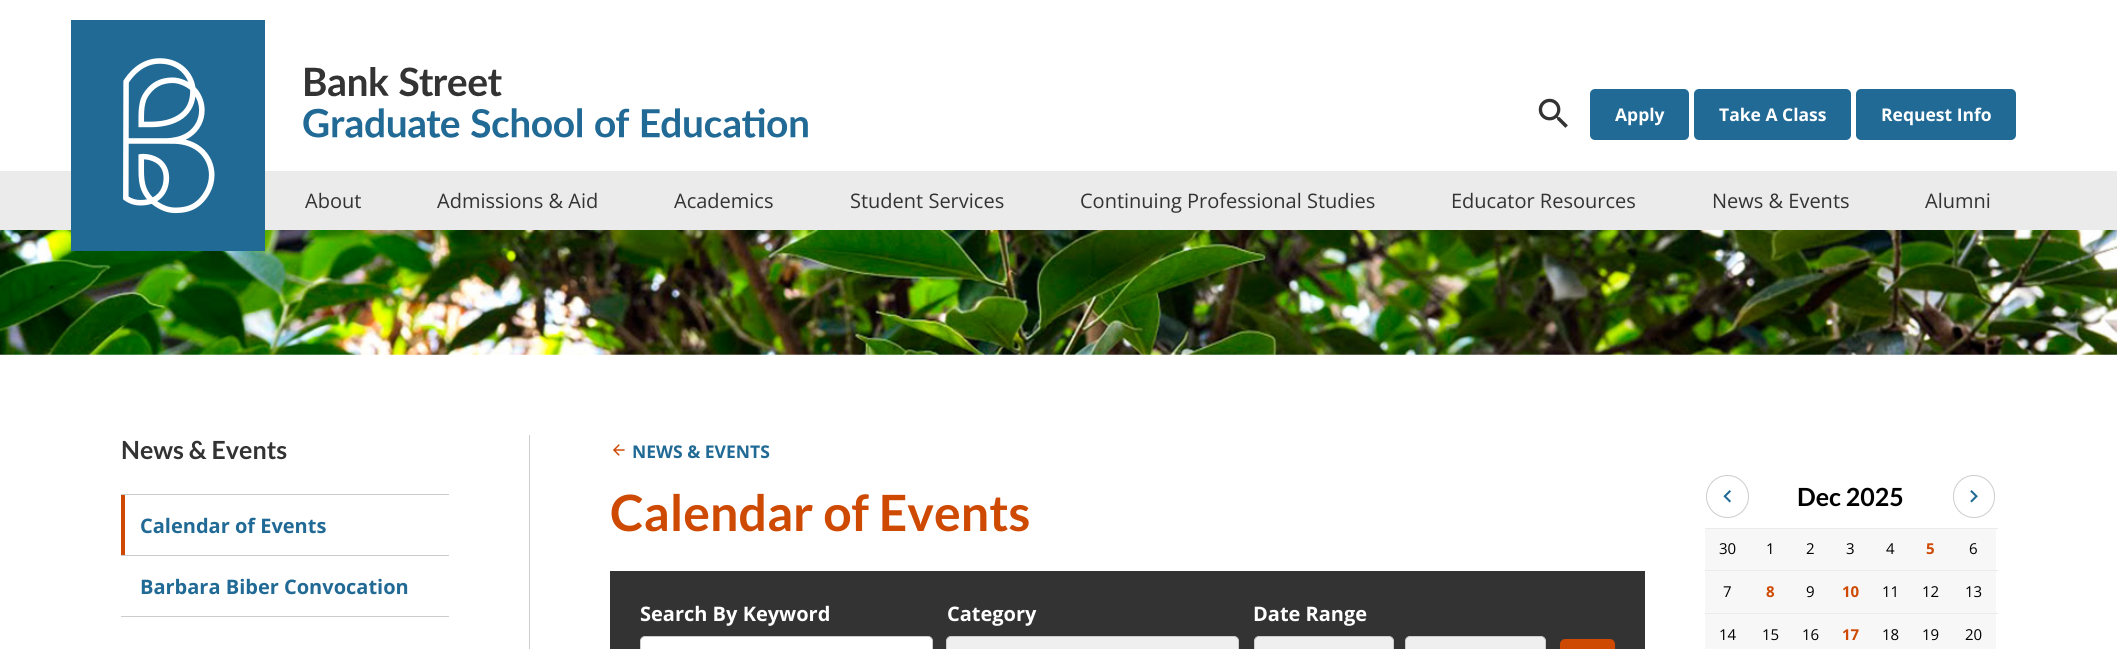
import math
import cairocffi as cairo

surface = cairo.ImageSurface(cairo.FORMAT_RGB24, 2117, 649)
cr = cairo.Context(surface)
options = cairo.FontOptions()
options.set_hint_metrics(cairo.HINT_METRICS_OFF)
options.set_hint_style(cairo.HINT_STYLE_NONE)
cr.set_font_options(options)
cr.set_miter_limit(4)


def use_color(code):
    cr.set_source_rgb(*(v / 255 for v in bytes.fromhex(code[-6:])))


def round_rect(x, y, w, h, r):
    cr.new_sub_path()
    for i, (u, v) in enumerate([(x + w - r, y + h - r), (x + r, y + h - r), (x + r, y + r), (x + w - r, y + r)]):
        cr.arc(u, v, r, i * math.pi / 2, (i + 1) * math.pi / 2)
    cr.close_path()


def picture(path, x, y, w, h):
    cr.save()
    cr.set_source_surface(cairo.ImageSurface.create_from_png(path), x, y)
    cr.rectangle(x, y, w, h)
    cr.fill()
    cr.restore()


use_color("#ffffff")
cr.paint()
use_color("#ebebeb")
cr.rectangle(0, 171, 2117, 59)
cr.fill()
picture("img4.png", 0, 230, 2117, 125)
use_color("#216a95")
cr.rectangle(71, 20, 194, 231)
cr.fill()
picture("img1.png", 123, 58, 92, 156)
picture("img2.png", 303, 67, 505, 71)
picture("img3.png", 1538, 98, 30, 30)
round_rect(1590, 89, 99, 51, 5)
cr.fill()
cr.select_font_face("Open Sans", cairo.FONT_SLANT_NORMAL, cairo.FONT_WEIGHT_BOLD)
cr.set_font_size(17.5)
use_color("#ffffff")
cr.move_to(1615, 121)
cr.show_text("Apply")
use_color("#216a95")
round_rect(1694, 89, 157, 51, 5)
cr.fill()
use_color("#ffffff")
cr.move_to(1719, 121)
cr.show_text("Take A Class")
use_color("#216a95")
round_rect(1856, 89, 160, 51, 5)
cr.fill()
use_color("#ffffff")
cr.move_to(1881, 121)
cr.show_text("Request Info")
cr.select_font_face("Open Sans")
cr.set_font_size(20)
use_color("#333333")
cr.move_to(305, 208)
cr.show_text("About")
cr.move_to(437, 208)
cr.show_text("Admissions & Aid")
cr.move_to(674, 208)
cr.show_text("Academics")
cr.move_to(850, 208)
cr.show_text("Student Services")
cr.move_to(1080, 208)
cr.show_text("Continuing Professional Studies")
cr.move_to(1451, 208)
cr.show_text("Educator Resources")
cr.move_to(1712, 208)
cr.show_text("News & Events")
cr.move_to(1925, 208)
cr.show_text("Alumni")
use_color("#cccccc")
cr.rectangle(529, 435, 1, 214)
cr.fill()
cr.select_font_face("Lato", cairo.FONT_SLANT_NORMAL, cairo.FONT_WEIGHT_BOLD)
cr.set_font_size(25)
use_color("#333333")
cr.move_to(121, 459)
cr.show_text("News & Events")
use_color("#cccccc")
cr.rectangle(121, 494, 328, 1)
cr.fill()
cr.rectangle(121, 555, 328, 1)
cr.fill()
use_color("#ce4a03")
cr.rectangle(121, 495, 4, 60)
cr.fill()
cr.select_font_face("Open Sans", cairo.FONT_SLANT_NORMAL, cairo.FONT_WEIGHT_BOLD)
cr.set_font_size(20)
use_color("#216a95")
cr.move_to(140, 533)
cr.show_text("Calendar of Events")
use_color("#cccccc")
cr.rectangle(121, 616, 328, 1)
cr.fill()
use_color("#216a95")
cr.move_to(140, 594)
cr.show_text("Barbara Biber Convocation")
picture("img5.png", 613, 444, 12, 12)
cr.set_font_size(17.5)
cr.move_to(632, 458)
cr.show_text("NEWS & EVENTS")
cr.select_font_face("Lato", cairo.FONT_SLANT_NORMAL, cairo.FONT_WEIGHT_BOLD)
cr.set_font_size(50)
use_color("#ce4a03")
cr.move_to(610, 531)
cr.show_text("Calendar of Events")
use_color("#333333")
cr.rectangle(610, 571, 1035, 78)
cr.fill()
cr.select_font_face("Open Sans", cairo.FONT_SLANT_NORMAL, cairo.FONT_WEIGHT_BOLD)
cr.set_font_size(20)
use_color("#ffffff")
cr.move_to(640, 621)
cr.show_text("Search By Keyword")
round_rect(640.5, 636.5, 292, 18, 4.5)
cr.fill_preserve()
use_color("#cccccc")
cr.set_line_width(1)
cr.stroke()
use_color("#ffffff")
cr.move_to(947, 621)
cr.show_text("Category")
use_color("#efefef")
round_rect(946.5, 636.5, 292, 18, 4.5)
cr.fill_preserve()
use_color("#cccccc")
cr.stroke()
use_color("#ffffff")
cr.move_to(1253, 621)
cr.show_text("Date Range")
use_color("#efefef")
round_rect(1254.5, 636.5, 139, 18, 4.5)
cr.fill_preserve()
use_color("#cccccc")
cr.stroke()
use_color("#efefef")
round_rect(1405.5, 636.5, 140, 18, 4.5)
cr.fill_preserve()
use_color("#cccccc")
cr.stroke()
use_color("#ce4a03")
round_rect(1561.5, 640.5, 52, 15, 3.5)
cr.fill_preserve()
cr.set_line_width(3)
cr.stroke()
use_color("#ebebeb")
cr.rectangle(1705, 528, 293, 1)
cr.fill()
cr.arc(1727.5, 496.5, 21, 0, 2 * math.pi)
use_color("#cccccc")
cr.set_line_width(1)
cr.stroke()
picture("img6.png", 1723, 490, 8, 13)
cr.select_font_face("Lato", cairo.FONT_SLANT_NORMAL, cairo.FONT_WEIGHT_BOLD)
cr.set_font_size(25)
use_color("#000000")
cr.move_to(1797, 506)
cr.show_text("Dec 2025")
round_rect(1953.5, 475.5, 41, 42, 20.5)
use_color("#cccccc")
cr.stroke()
picture("img7.png", 1970, 490, 8, 13)
use_color("#f7f7f7")
cr.rectangle(1705, 529, 291, 41)
cr.fill()
use_color("#ebebeb")
cr.rectangle(1705, 570, 293, 1)
cr.fill()
cr.select_font_face("Open Sans")
cr.set_font_size(15)
use_color("#000000")
cr.move_to(1719, 554)
cr.show_text("30")
cr.move_to(1766, 554)
cr.show_text("1")
cr.move_to(1806, 554)
cr.show_text("2")
cr.move_to(1846, 554)
cr.show_text("3")
cr.move_to(1886, 554)
cr.show_text("4")
cr.select_font_face("Open Sans", cairo.FONT_SLANT_NORMAL, cairo.FONT_WEIGHT_BOLD)
use_color("#ce4a03")
cr.move_to(1926, 554)
cr.show_text("5")
cr.select_font_face("Open Sans")
use_color("#000000")
cr.move_to(1969, 554)
cr.show_text("6")
use_color("#f7f7f7")
cr.rectangle(1705, 571, 291, 42)
cr.fill()
use_color("#ebebeb")
cr.rectangle(1705, 613, 293, 1)
cr.fill()
use_color("#000000")
cr.move_to(1723, 597)
cr.show_text("7")
cr.select_font_face("Open Sans", cairo.FONT_SLANT_NORMAL, cairo.FONT_WEIGHT_BOLD)
use_color("#ce4a03")
cr.move_to(1766, 597)
cr.show_text("8")
cr.select_font_face("Open Sans")
use_color("#000000")
cr.move_to(1806, 597)
cr.show_text("9")
cr.select_font_face("Open Sans", cairo.FONT_SLANT_NORMAL, cairo.FONT_WEIGHT_BOLD)
use_color("#ce4a03")
cr.move_to(1842, 597)
cr.show_text("10")
cr.select_font_face("Open Sans")
use_color("#000000")
cr.move_to(1882, 597)
cr.show_text("11")
cr.move_to(1922, 597)
cr.show_text("12")
cr.move_to(1965, 597)
cr.show_text("13")
use_color("#f7f7f7")
cr.rectangle(1705, 614, 291, 35)
cr.fill()
use_color("#000000")
cr.move_to(1719, 640)
cr.show_text("14")
cr.move_to(1762, 640)
cr.show_text("15")
cr.move_to(1802, 640)
cr.show_text("16")
cr.select_font_face("Open Sans", cairo.FONT_SLANT_NORMAL, cairo.FONT_WEIGHT_BOLD)
use_color("#ce4a03")
cr.move_to(1842, 640)
cr.show_text("17")
cr.select_font_face("Open Sans")
use_color("#000000")
cr.move_to(1882, 640)
cr.show_text("18")
cr.move_to(1922, 640)
cr.show_text("19")
cr.move_to(1965, 640)
cr.show_text("20")
surface.write_to_png("result.png")
